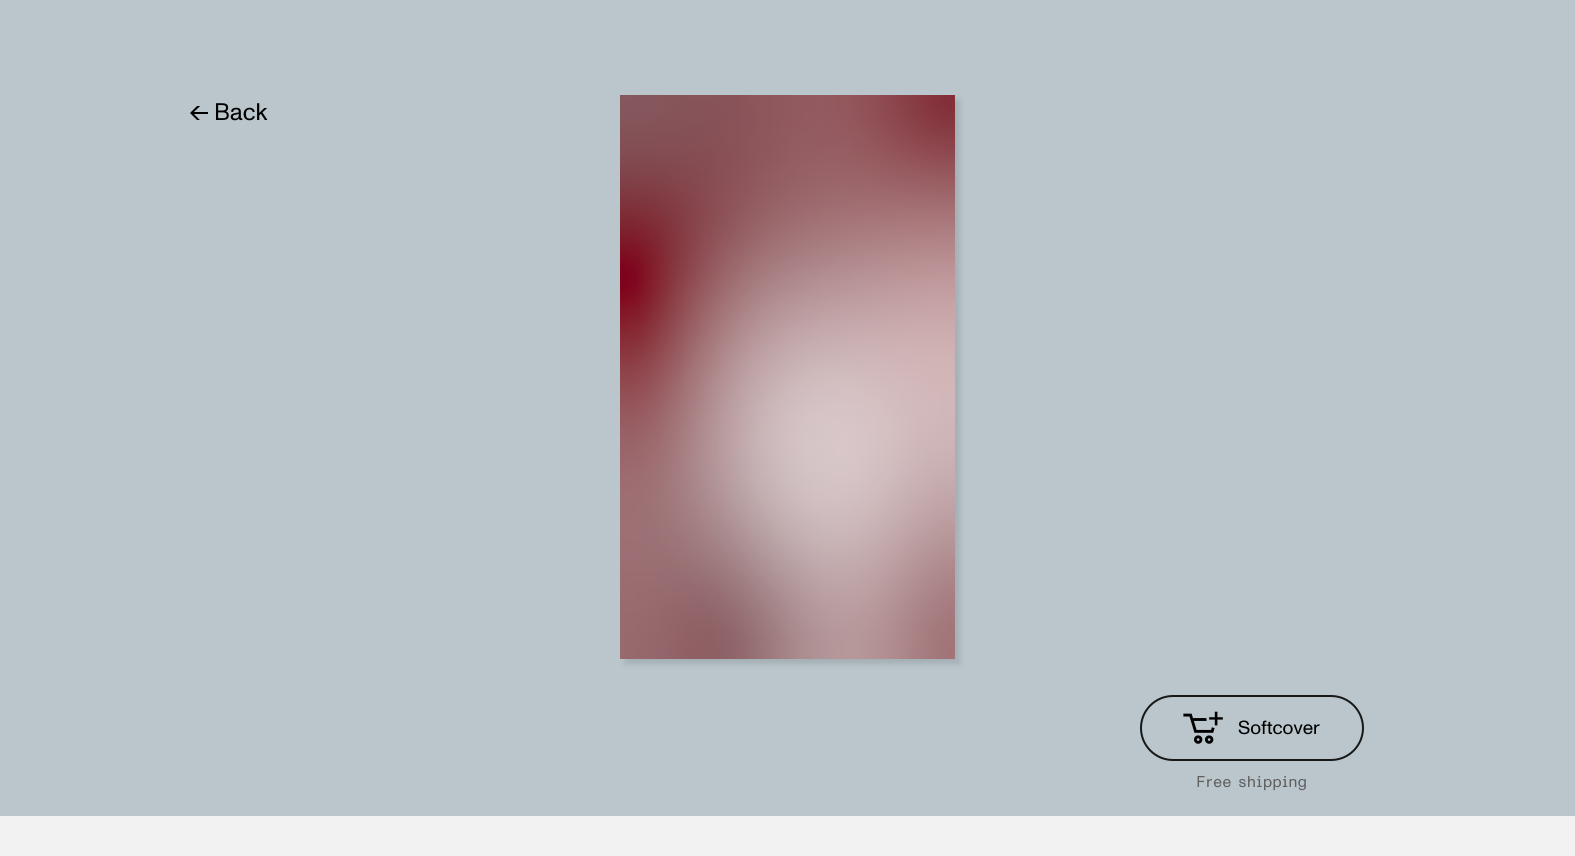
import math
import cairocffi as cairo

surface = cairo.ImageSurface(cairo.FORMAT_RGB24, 1575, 856)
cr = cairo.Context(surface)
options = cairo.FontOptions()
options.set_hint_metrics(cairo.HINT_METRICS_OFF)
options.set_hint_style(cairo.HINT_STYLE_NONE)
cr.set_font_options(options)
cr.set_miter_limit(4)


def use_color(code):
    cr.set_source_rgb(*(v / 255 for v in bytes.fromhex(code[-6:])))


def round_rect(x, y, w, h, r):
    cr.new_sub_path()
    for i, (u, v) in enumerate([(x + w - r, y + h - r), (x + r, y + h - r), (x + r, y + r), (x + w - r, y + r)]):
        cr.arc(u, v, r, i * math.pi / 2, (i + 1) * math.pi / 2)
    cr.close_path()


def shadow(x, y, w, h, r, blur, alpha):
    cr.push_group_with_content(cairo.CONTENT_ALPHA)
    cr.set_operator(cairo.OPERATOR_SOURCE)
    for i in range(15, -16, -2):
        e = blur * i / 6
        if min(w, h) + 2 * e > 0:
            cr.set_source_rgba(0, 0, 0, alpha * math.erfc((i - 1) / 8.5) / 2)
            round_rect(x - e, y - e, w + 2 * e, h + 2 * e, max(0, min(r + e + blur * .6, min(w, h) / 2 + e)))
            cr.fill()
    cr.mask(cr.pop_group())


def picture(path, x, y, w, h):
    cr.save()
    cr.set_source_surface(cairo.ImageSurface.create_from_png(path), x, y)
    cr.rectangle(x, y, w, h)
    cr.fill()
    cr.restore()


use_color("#f2f2f2")
cr.paint()
use_color("#bac6cb")
cr.rectangle(0, 0, 1575, 816)
cr.fill()
picture("img1.png", 190, 106, 18, 14)
cr.select_font_face("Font")
cr.set_font_size(24)
use_color("#000000")
cr.move_to(214, 120)
cr.show_text("Back")
use_color("#1e2c30")
shadow(625, 100, 335, 564, 0, 3, 0.15)
picture("img2.png", 620, 95, 335, 564)
round_rect(1141, 696, 222, 64, 32)
use_color("#181818")
cr.stroke()
picture("img3.png", 1183, 711, 40, 33)
cr.set_font_size(19)
use_color("#000000")
cr.move_to(1238, 734)
cr.show_text("Softcover")
cr.select_font_face("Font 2")
cr.set_font_size(15.75)
use_color("#606060")
cr.move_to(1196, 787)
cr.show_text("Free shipping")
surface.write_to_png("result.png")
